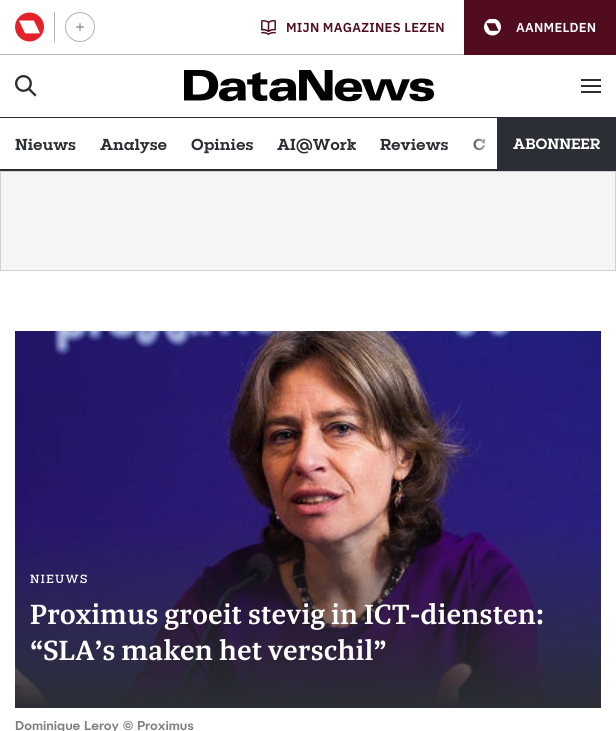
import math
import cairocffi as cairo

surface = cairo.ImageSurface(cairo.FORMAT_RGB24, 616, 731)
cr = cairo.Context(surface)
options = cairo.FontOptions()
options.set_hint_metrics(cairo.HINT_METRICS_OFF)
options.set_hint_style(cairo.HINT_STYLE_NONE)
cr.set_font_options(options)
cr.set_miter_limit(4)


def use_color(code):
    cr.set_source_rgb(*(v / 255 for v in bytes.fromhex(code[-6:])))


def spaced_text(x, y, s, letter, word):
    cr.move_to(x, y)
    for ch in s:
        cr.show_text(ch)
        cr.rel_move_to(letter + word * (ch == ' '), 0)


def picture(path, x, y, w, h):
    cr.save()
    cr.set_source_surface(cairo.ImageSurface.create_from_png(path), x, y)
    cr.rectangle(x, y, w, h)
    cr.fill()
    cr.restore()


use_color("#ffffff")
cr.paint()
use_color("#b2b2b2")
cr.rectangle(0, 54, 464, 1)
cr.fill()
use_color("#b2b1b1")
cr.rectangle(54, 12, 1, 30)
cr.fill()
picture("img1.png", 15, 12, 29, 30)
cr.arc(80, 27, 14.5, 0, 2 * math.pi)
cr.set_line_width(1)
cr.stroke()
picture("img2.png", 76, 23, 8, 8)
picture("img3.png", 261, 20, 15, 15)
cr.select_font_face("IBM Plex Sans SemiBold")
cr.set_font_size(13)
use_color("#520c20")
spaced_text(286, 32, "MIJN MAGAZINES LEZEN", 0.25, 0)
cr.rectangle(464, 0, 152, 55)
cr.fill()
picture("img4.png", 484, 19, 17, 17)
use_color("#ffffff")
spaced_text(516, 32, "AANMELDEN", 0.25, 0)
picture("img5.png", 15, 75, 22, 22)
picture("img6.png", 184, 70, 250, 32)
use_color("#2b2e34")
cr.rectangle(581, 79, 20, 2)
cr.fill()
cr.rectangle(581, 85, 20, 2)
cr.fill()
cr.rectangle(581, 91, 20, 2)
cr.fill()
cr.rectangle(0, 117, 616, 1)
cr.fill()
cr.rectangle(0, 169, 616, 2)
cr.fill()
cr.select_font_face("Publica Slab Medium")
cr.set_font_size(16)
cr.move_to(15, 150)
cr.show_text("Nieuws")
cr.move_to(100, 150)
cr.show_text("Analyse")
cr.move_to(191, 150)
cr.show_text("Opinies")
cr.move_to(277, 150)
cr.show_text("AI@Work")
cr.move_to(380, 150)
cr.show_text("Reviews")
cr.move_to(473, 150)
cr.show_text("C")
gradient = cairo.LinearGradient(467, 144, 497, 144)
gradient.add_color_stop_rgba(0, 1, 1, 1, 0)
gradient.add_color_stop_rgba(1, 1, 1, 1, 1)
cr.set_source(gradient)
cr.rectangle(473, 138, 12, 13)
cr.fill()
use_color("#2b2e34")
cr.rectangle(497, 118, 119, 51)
cr.fill()
cr.set_font_size(15)
use_color("#ffffff")
cr.move_to(513, 149)
cr.show_text("ABONNEER")
use_color("#f5f5f5")
cr.rectangle(0.5, 171.5, 615, 99)
cr.fill_preserve()
use_color("#d1d1d1")
cr.stroke()
picture("img7.png", 15, 331, 586, 377)
cr.select_font_face("Publica Slab")
cr.set_font_size(12)
use_color("#ffffff")
spaced_text(30, 583, "NIEUWS", 1.5, 0)
cr.select_font_face("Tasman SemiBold")
cr.set_font_size(30)
cr.move_to(30, 624)
cr.show_text("Proximus groeit stevig in ICT-diensten:")
cr.move_to(30, 660)
cr.show_text("“SLA’s maken het verschil”")
cr.select_font_face("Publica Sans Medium")
cr.set_font_size(13)
use_color("#808080")
cr.move_to(15, 730)
cr.show_text("Dominique Leroy © Proximus")
surface.write_to_png("result.png")
